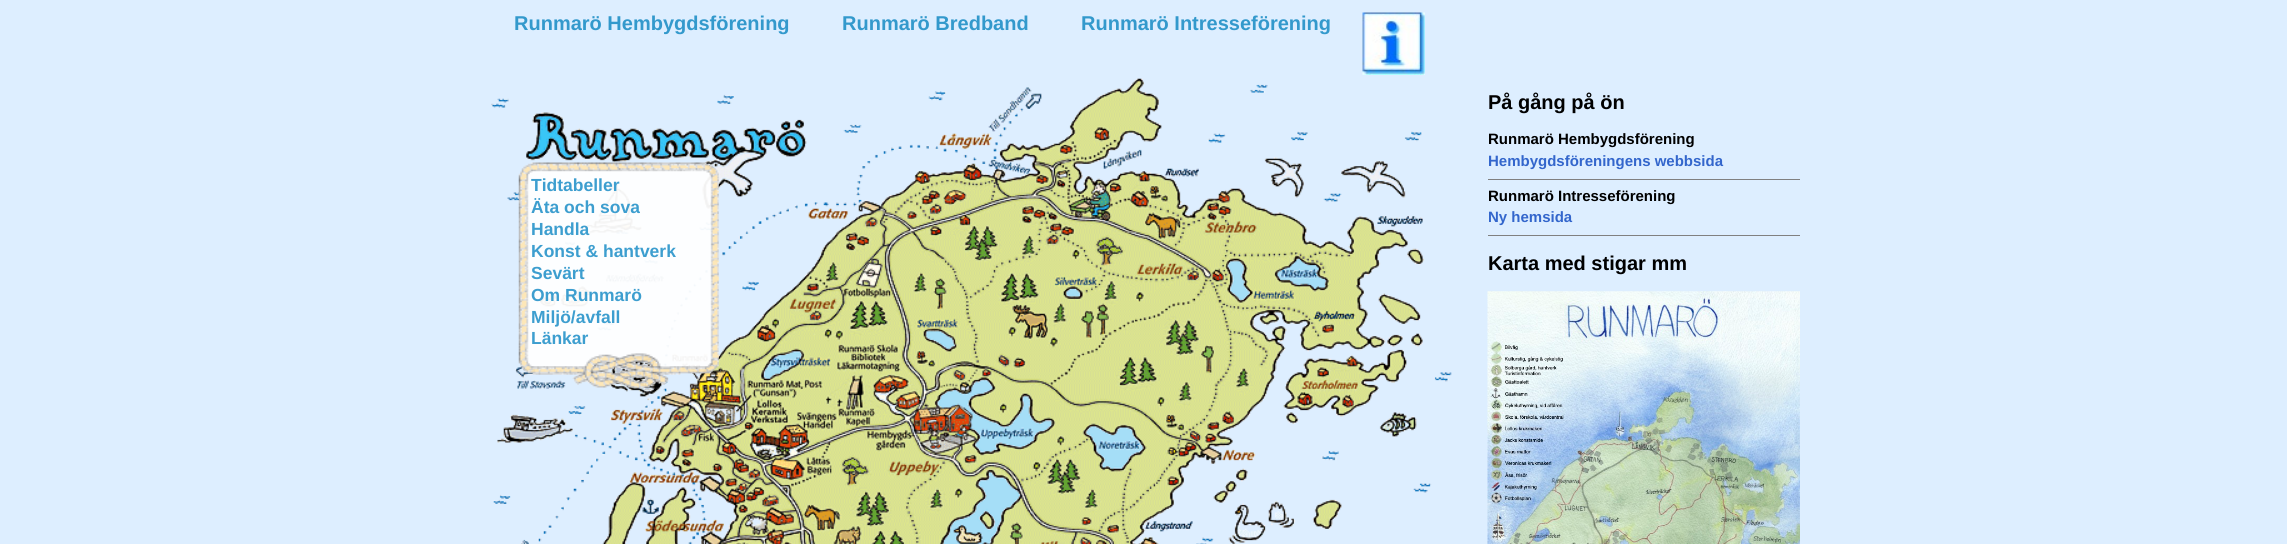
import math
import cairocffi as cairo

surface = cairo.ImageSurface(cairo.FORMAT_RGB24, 2287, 544)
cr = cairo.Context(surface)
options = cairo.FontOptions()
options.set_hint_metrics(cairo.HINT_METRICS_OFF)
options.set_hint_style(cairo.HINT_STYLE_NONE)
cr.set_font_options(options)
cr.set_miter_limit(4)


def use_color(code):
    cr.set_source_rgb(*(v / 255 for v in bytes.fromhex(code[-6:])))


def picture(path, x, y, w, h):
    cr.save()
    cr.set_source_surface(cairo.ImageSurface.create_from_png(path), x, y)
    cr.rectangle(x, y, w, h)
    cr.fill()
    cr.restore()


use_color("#ddeeff")
cr.paint()
cr.select_font_face("Liberation Sans", cairo.FONT_SLANT_NORMAL, cairo.FONT_WEIGHT_BOLD)
cr.set_font_size(20)
use_color("#3399cc")
cr.move_to(514, 30)
cr.show_text("Runmarö Hembygdsförening")
cr.move_to(842, 30)
cr.show_text("Runmarö Bredband")
cr.move_to(1081, 30)
cr.show_text("Runmarö Intresseförening")
picture("img1.png", 1362, 12, 63, 63)
picture("img2.png", 491, 78, 961, 466)
use_color("#000000")
cr.move_to(1488, 109)
cr.show_text("På gång på ön")
cr.set_font_size(15)
cr.move_to(1488, 144)
cr.show_text("Runmarö Hembygdsförening")
use_color("#3366cc")
cr.move_to(1488, 166)
cr.show_text("Hembygdsföreningens webbsida")
use_color("#808080")
cr.rectangle(1488, 179, 312, 1)
cr.fill()
use_color("#000000")
cr.move_to(1488, 201)
cr.show_text("Runmarö Intresseförening")
use_color("#3366cc")
cr.move_to(1488, 222)
cr.show_text("Ny hemsida")
use_color("#808080")
cr.rectangle(1488, 235, 312, 1)
cr.fill()
cr.set_font_size(20)
use_color("#000000")
cr.move_to(1488, 270)
cr.show_text("Karta med stigar mm")
picture("img3.png", 1487, 291, 313, 253)
picture("img4.png", 518, 162, 201, 226)
cr.set_font_size(17.5)
use_color("#3d9ecf")
cr.move_to(531, 191)
cr.show_text("Tidtabeller")
cr.move_to(531, 213)
cr.show_text("Äta och sova")
cr.move_to(531, 235)
cr.show_text("Handla")
cr.move_to(531, 257)
cr.show_text("Konst & hantverk")
cr.move_to(531, 279)
cr.show_text("Sevärt")
cr.move_to(531, 301)
cr.show_text("Om Runmarö")
cr.move_to(531, 323)
cr.show_text("Miljö/avfall")
cr.move_to(531, 344)
cr.show_text("Länkar")
surface.write_to_png("result.png")
